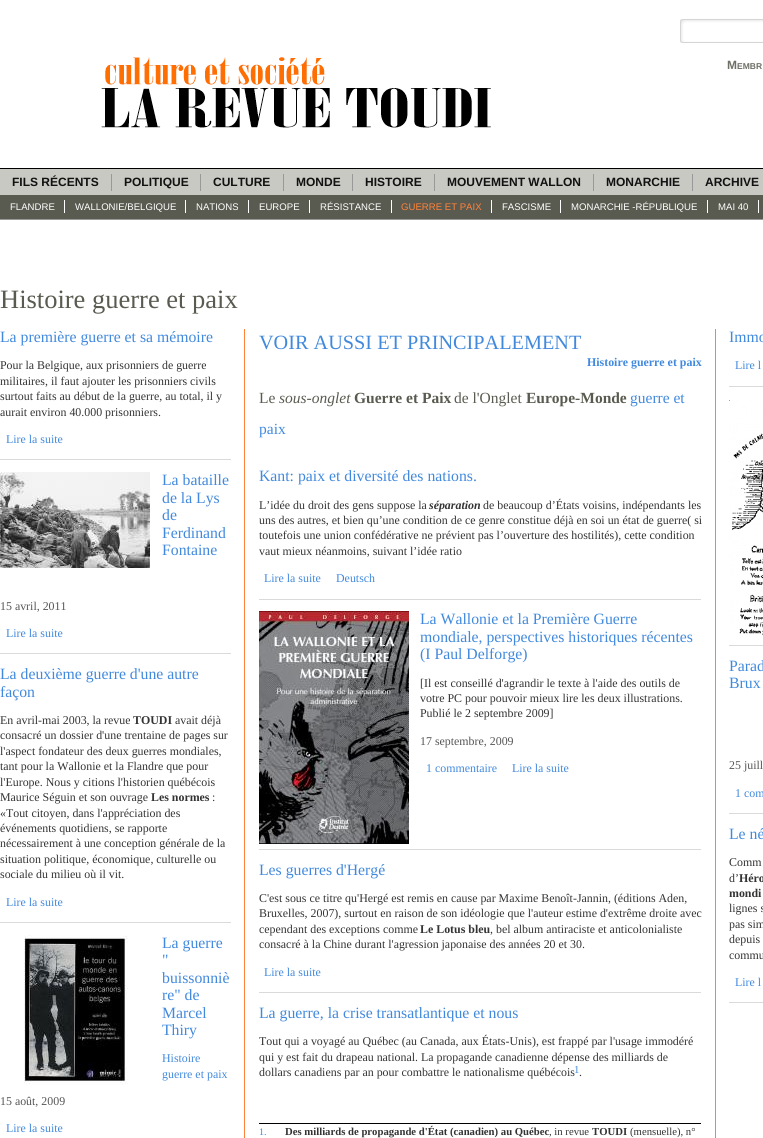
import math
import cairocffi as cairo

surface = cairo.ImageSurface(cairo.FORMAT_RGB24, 763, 1138)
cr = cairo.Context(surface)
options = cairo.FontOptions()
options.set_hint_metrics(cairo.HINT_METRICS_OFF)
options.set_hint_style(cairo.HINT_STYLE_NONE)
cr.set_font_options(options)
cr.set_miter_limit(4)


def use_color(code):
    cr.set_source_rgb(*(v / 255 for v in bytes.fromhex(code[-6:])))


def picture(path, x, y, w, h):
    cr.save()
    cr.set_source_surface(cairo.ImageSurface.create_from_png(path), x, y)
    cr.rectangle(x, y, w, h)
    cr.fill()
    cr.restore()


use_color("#ffffff")
cr.paint()
picture("img1.png", 101, 57, 390, 71)
picture("img2.png", 680, 19, 83, 24)
cr.select_font_face("Liberation Sans", cairo.FONT_SLANT_NORMAL, cairo.FONT_WEIGHT_BOLD)
cr.set_font_size(12)
use_color("#6e6f65")
cr.move_to(727, 69)
cr.show_text("M")
cr.set_font_size(8.5)
cr.move_to(737, 69)
cr.show_text("EMBR")
use_color("#999999")
cr.rectangle(0, 219, 763, 1)
cr.fill()
use_color("#c8c9c3")
cr.rectangle(0, 169, 763, 26)
cr.fill()
use_color("#000000")
cr.rectangle(0, 168, 763, 1)
cr.fill()
use_color("#999999")
cr.rectangle(111, 174, 1, 17)
cr.fill()
cr.set_font_size(12)
use_color("#111111")
cr.move_to(12, 186)
cr.show_text("FILS RÉCENTS")
use_color("#999999")
cr.rectangle(200, 174, 1, 17)
cr.fill()
use_color("#111111")
cr.move_to(124, 186)
cr.show_text("POLITIQUE")
use_color("#999999")
cr.rectangle(283, 174, 1, 17)
cr.fill()
use_color("#111111")
cr.move_to(213, 186)
cr.show_text("CULTURE")
use_color("#999999")
cr.rectangle(352, 174, 1, 17)
cr.fill()
use_color("#111111")
cr.move_to(296, 186)
cr.show_text("MONDE")
use_color("#999999")
cr.rectangle(434, 174, 1, 17)
cr.fill()
use_color("#111111")
cr.move_to(365, 186)
cr.show_text("HISTOIRE")
use_color("#999999")
cr.rectangle(593, 174, 1, 17)
cr.fill()
use_color("#111111")
cr.move_to(447, 186)
cr.show_text("MOUVEMENT WALLON")
use_color("#999999")
cr.rectangle(692, 174, 1, 17)
cr.fill()
use_color("#111111")
cr.move_to(606, 186)
cr.show_text("MONARCHIE")
cr.move_to(705, 186)
cr.show_text("ARCHIVE")
use_color("#5a5b50")
cr.rectangle(0, 195, 763, 24)
cr.fill()
use_color("#ffffff")
cr.rectangle(64, 200, 1, 13)
cr.fill()
cr.select_font_face("Liberation Sans")
cr.set_font_size(9.6)
cr.move_to(10, 210)
cr.show_text("FLANDRE")
cr.rectangle(185, 200, 1, 13)
cr.fill()
cr.move_to(75, 210)
cr.show_text("WALLONIE/BELGIQUE")
cr.rectangle(248, 200, 1, 13)
cr.fill()
cr.move_to(196, 210)
cr.show_text("NATIONS")
cr.rectangle(309, 200, 1, 13)
cr.fill()
cr.move_to(259, 210)
cr.show_text("EUROPE")
cr.rectangle(391, 200, 1, 13)
cr.fill()
cr.move_to(320, 210)
cr.show_text("RÉSISTANCE")
cr.rectangle(491, 200, 1, 13)
cr.fill()
use_color("#ff823a")
cr.move_to(401, 210)
cr.show_text("GUERRE ET PAIX")
use_color("#ffffff")
cr.rectangle(560, 200, 1, 13)
cr.fill()
cr.move_to(502, 210)
cr.show_text("FASCISME")
cr.rectangle(707, 200, 1, 13)
cr.fill()
cr.move_to(571, 210)
cr.show_text("MONARCHIE -RÉPUBLIQUE")
cr.rectangle(758, 200, 1, 13)
cr.fill()
cr.move_to(718, 210)
cr.show_text("MAI 40")
cr.select_font_face("Liberation Serif")
cr.set_font_size(26.5)
use_color("#5a5b50")
cr.move_to(0, 308)
cr.show_text("Histoire guerre et paix")
use_color("#dadada")
cr.rectangle(0, 459, 231, 1)
cr.fill()
cr.set_font_size(15.75)
use_color("#4189dd")
cr.move_to(0, 342)
cr.show_text("La première guerre et sa mémoire")
cr.set_font_size(11.9)
use_color("#333333")
cr.move_to(0, 369)
cr.show_text("Pour la Belgique, aux prisonniers de guerre")
cr.move_to(0, 385)
cr.show_text("militaires, il faut ajouter les prisonniers civils")
cr.move_to(0, 400)
cr.show_text("surtout faits au début de la guerre, au total, il y")
cr.move_to(0, 416)
cr.show_text("aurait environ 40.000 prisonniers.")
use_color("#4189dd")
cr.move_to(6, 443)
cr.show_text("Lire la suite")
use_color("#dadada")
cr.rectangle(0, 653, 231, 1)
cr.fill()
picture("img3.png", 0, 472, 150, 96)
cr.set_font_size(15.75)
use_color("#4189dd")
cr.move_to(162, 485)
cr.show_text("La bataille")
cr.move_to(162, 503)
cr.show_text("de la Lys")
cr.move_to(162, 520)
cr.show_text("de")
cr.move_to(162, 538)
cr.show_text("Ferdinand")
cr.move_to(162, 555)
cr.show_text("Fontaine")
cr.set_font_size(11.9)
use_color("#555555")
cr.move_to(0, 610)
cr.show_text("15 avril, 2011")
use_color("#4189dd")
cr.move_to(6, 637)
cr.show_text("Lire la suite")
use_color("#dadada")
cr.rectangle(0, 922, 231, 1)
cr.fill()
cr.set_font_size(15.75)
use_color("#4189dd")
cr.move_to(0, 679)
cr.show_text("La deuxième guerre d'une autre")
cr.move_to(0, 697)
cr.show_text("façon")
cr.set_font_size(11.9)
use_color("#333333")
cr.move_to(0, 724)
cr.show_text("En avril-mai 2003, la revue")
cr.select_font_face("Liberation Serif", cairo.FONT_SLANT_NORMAL, cairo.FONT_WEIGHT_BOLD)
cr.move_to(133, 724)
cr.show_text("TOUDI")
cr.select_font_face("Liberation Serif")
cr.move_to(175, 724)
cr.show_text("avait déjà")
cr.move_to(0, 739)
cr.show_text("consacré un dossier d'une trentaine de pages sur")
cr.move_to(0, 755)
cr.show_text("l'aspect fondateur des deux guerres mondiales,")
cr.move_to(0, 770)
cr.show_text("tant pour la Wallonie et la Flandre que pour")
cr.move_to(0, 786)
cr.show_text("l'Europe. Nous y citions l'historien québécois")
cr.move_to(0, 801)
cr.show_text("Maurice Séguin et son ouvrage")
cr.select_font_face("Liberation Serif", cairo.FONT_SLANT_NORMAL, cairo.FONT_WEIGHT_BOLD)
cr.move_to(151, 801)
cr.show_text("Les normes")
cr.select_font_face("Liberation Serif")
cr.move_to(212, 801)
cr.show_text(":")
cr.move_to(0, 817)
cr.show_text("«Tout citoyen, dans l'appréciation des")
cr.move_to(0, 832)
cr.show_text("événements quotidiens, se rapporte")
cr.move_to(0, 847)
cr.show_text("nécessairement à une conception générale de la")
cr.move_to(0, 863)
cr.show_text("situation politique, économique, culturelle ou")
cr.move_to(0, 878)
cr.show_text("sociale du milieu où il vit.")
use_color("#4189dd")
cr.move_to(6, 906)
cr.show_text("Lire la suite")
picture("img4.png", 24, 935, 104, 150)
cr.set_font_size(15.75)
cr.move_to(162, 948)
cr.show_text("La guerre")
cr.move_to(162, 965)
cr.show_text("\"")
cr.move_to(162, 983)
cr.show_text("buissonniè")
cr.move_to(162, 1000)
cr.show_text("re\" de")
cr.move_to(162, 1018)
cr.show_text("Marcel")
cr.move_to(162, 1035)
cr.show_text("Thiry")
cr.set_font_size(11.9)
cr.move_to(162, 1062)
cr.show_text("Histoire")
cr.move_to(162, 1078)
cr.show_text("guerre et paix")
use_color("#555555")
cr.move_to(0, 1105)
cr.show_text("15 août, 2009")
use_color("#4189dd")
cr.move_to(6, 1132)
cr.show_text("Lire la suite")
use_color("#ff823a")
cr.rectangle(715, 329, 1, 809)
cr.fill()
cr.rectangle(244, 329, 1, 809)
cr.fill()
cr.set_font_size(20.25)
use_color("#4189dd")
cr.move_to(259, 349)
cr.show_text("VOIR AUSSI ET PRINCIPALEMENT")
cr.select_font_face("Liberation Serif", cairo.FONT_SLANT_NORMAL, cairo.FONT_WEIGHT_BOLD)
cr.set_font_size(11.9)
cr.move_to(587, 366)
cr.show_text("Histoire guerre et paix")
cr.select_font_face("Liberation Serif")
cr.set_font_size(15.5)
use_color("#5a5b50")
cr.move_to(259, 403)
cr.show_text("Le")
cr.select_font_face("Liberation Serif", cairo.FONT_SLANT_ITALIC)
cr.move_to(279, 403)
cr.show_text("sous-onglet")
cr.select_font_face("Liberation Serif", cairo.FONT_SLANT_NORMAL, cairo.FONT_WEIGHT_BOLD)
cr.move_to(354, 403)
cr.show_text("Guerre et Paix")
cr.select_font_face("Liberation Serif")
cr.move_to(454, 403)
cr.show_text("de l'Onglet")
cr.select_font_face("Liberation Serif", cairo.FONT_SLANT_NORMAL, cairo.FONT_WEIGHT_BOLD)
cr.move_to(526, 403)
cr.show_text("Europe-Monde")
cr.select_font_face("Liberation Serif")
use_color("#4189dd")
cr.move_to(630, 403)
cr.show_text("guerre et")
cr.move_to(259, 434)
cr.show_text("paix")
use_color("#dadada")
cr.rectangle(259, 599, 442, 1)
cr.fill()
cr.set_font_size(15.75)
use_color("#4189dd")
cr.move_to(259, 481)
cr.show_text("Kant: paix et diversité des nations.")
cr.set_font_size(11.9)
use_color("#333333")
cr.move_to(259, 509)
cr.show_text("L’idée du droit des gens suppose la")
cr.select_font_face("Liberation Serif", cairo.FONT_SLANT_ITALIC, cairo.FONT_WEIGHT_BOLD)
cr.move_to(429, 509)
cr.show_text("séparation")
cr.select_font_face("Liberation Serif")
cr.move_to(483, 509)
cr.show_text("de beaucoup d’États voisins, indépendants les")
cr.move_to(259, 524)
cr.show_text("uns des autres, et bien qu’une condition de ce genre constitue déjà en soi un état de guerre( si")
cr.move_to(259, 539)
cr.show_text("toutefois une union confédérative ne prévient pas l’ouverture des hostilités), cette condition")
cr.move_to(259, 555)
cr.show_text("vaut mieux néanmoins, suivant l’idée ratio")
use_color("#4189dd")
cr.move_to(264, 582)
cr.show_text("Lire la suite")
cr.move_to(336, 582)
cr.show_text("Deutsch")
use_color("#dadada")
cr.rectangle(259, 849, 442, 1)
cr.fill()
picture("img5.png", 259, 611, 150, 233)
cr.set_font_size(15.75)
use_color("#4189dd")
cr.move_to(420, 624)
cr.show_text("La Wallonie et la Première Guerre")
cr.move_to(420, 642)
cr.show_text("mondiale, perspectives historiques récentes")
cr.move_to(420, 659)
cr.show_text("(I Paul Delforge)")
cr.set_font_size(11.9)
use_color("#333333")
cr.move_to(420, 687)
cr.show_text("[Il est conseillé d'agrandir le texte à l'aide des outils de")
cr.move_to(420, 702)
cr.show_text("votre PC pour pouvoir mieux lire les deux illustrations.")
cr.move_to(420, 717)
cr.show_text("Publié le 2 septembre 2009]")
use_color("#555555")
cr.move_to(420, 745)
cr.show_text("17 septembre, 2009")
use_color("#4189dd")
cr.move_to(426, 772)
cr.show_text("1 commentaire")
cr.move_to(512, 772)
cr.show_text("Lire la suite")
use_color("#dadada")
cr.rectangle(259, 992, 442, 1)
cr.fill()
cr.set_font_size(15.75)
use_color("#4189dd")
cr.move_to(259, 875)
cr.show_text("Les guerres d'Hergé")
cr.set_font_size(11.9)
use_color("#333333")
cr.move_to(259, 902)
cr.show_text("C'est sous ce titre qu'Hergé est remis en cause par Maxime Benoît-Jannin, (éditions Aden,")
cr.move_to(259, 917)
cr.show_text("Bruxelles, 2007), surtout en raison de son idéologie que l'auteur estime d'extrême droite avec")
cr.move_to(259, 933)
cr.show_text("cependant des exceptions comme")
cr.select_font_face("Liberation Serif", cairo.FONT_SLANT_NORMAL, cairo.FONT_WEIGHT_BOLD)
cr.move_to(420, 933)
cr.show_text("Le Lotus bleu")
cr.select_font_face("Liberation Serif")
cr.move_to(490, 933)
cr.show_text(", bel album antiraciste et anticolonialiste")
cr.move_to(259, 948)
cr.show_text("consacré à la Chine durant l'agression japonaise des années 20 et 30.")
use_color("#4189dd")
cr.move_to(264, 976)
cr.show_text("Lire la suite")
cr.set_font_size(15.75)
cr.move_to(259, 1018)
cr.show_text("La guerre, la crise transatlantique et nous")
cr.set_font_size(11.9)
use_color("#333333")
cr.move_to(259, 1045)
cr.show_text("Tout qui a voyagé au Québec (au Canada, aux États-Unis), est frappé par l'usage immodéré")
cr.move_to(259, 1061)
cr.show_text("qui y est fait du drapeau national. La propagande canadienne dépense des milliards de")
cr.move_to(259, 1076)
cr.show_text("dollars canadiens par an pour combattre le nationalisme québécois")
cr.set_font_size(10.7)
use_color("#4189dd")
cr.move_to(574, 1073)
cr.show_text("1")
cr.set_font_size(11.9)
use_color("#333333")
cr.move_to(579, 1076)
cr.show_text(".")
use_color("#000000")
cr.rectangle(259, 1123, 442, 1)
cr.fill()
cr.set_font_size(10)
use_color("#4189dd")
cr.move_to(259, 1135)
cr.show_text("1.")
cr.select_font_face("Liberation Serif", cairo.FONT_SLANT_NORMAL, cairo.FONT_WEIGHT_BOLD)
cr.set_font_size(10.7)
use_color("#333333")
cr.move_to(285, 1135)
cr.show_text("Des milliards de propagande d'État (canadien) au Québec")
cr.select_font_face("Liberation Serif")
cr.move_to(549, 1135)
cr.show_text(", in revue")
cr.select_font_face("Liberation Serif", cairo.FONT_SLANT_NORMAL, cairo.FONT_WEIGHT_BOLD)
cr.move_to(592, 1135)
cr.show_text("TOUDI")
cr.select_font_face("Liberation Serif")
cr.move_to(630, 1135)
cr.show_text("(mensuelle), n°")
use_color("#dadada")
cr.rectangle(729, 386, 34, 1)
cr.fill()
cr.set_font_size(15.75)
use_color("#4189dd")
cr.move_to(729, 342)
cr.show_text("Immo")
cr.set_font_size(11.9)
cr.move_to(735, 369)
cr.show_text("Lire l")
use_color("#dadada")
cr.rectangle(729, 645, 34, 1)
cr.fill()
picture("img6.png", 729, 400, 34, 235)
cr.rectangle(729, 813, 34, 1)
cr.fill()
cr.set_font_size(15.75)
use_color("#4189dd")
cr.move_to(729, 671)
cr.show_text("Parad")
cr.move_to(729, 688)
cr.show_text("Brux")
cr.set_font_size(11.9)
use_color("#555555")
cr.move_to(729, 769)
cr.show_text("25 juill")
use_color("#4189dd")
cr.move_to(735, 797)
cr.show_text("1 com")
use_color("#dadada")
cr.rectangle(729, 1002, 34, 1)
cr.fill()
cr.set_font_size(15.75)
use_color("#4189dd")
cr.move_to(729, 839)
cr.show_text("Le né")
cr.set_font_size(11.9)
use_color("#333333")
cr.move_to(729, 866)
cr.show_text("Comm")
cr.move_to(729, 882)
cr.show_text("d’")
cr.select_font_face("Liberation Serif", cairo.FONT_SLANT_NORMAL, cairo.FONT_WEIGHT_BOLD)
cr.move_to(739, 882)
cr.show_text("Héro")
cr.move_to(729, 897)
cr.show_text("mondi")
cr.select_font_face("Liberation Serif")
cr.move_to(729, 912)
cr.show_text("lignes s")
cr.move_to(729, 928)
cr.show_text("pas sim")
cr.move_to(729, 943)
cr.show_text("depuis")
cr.move_to(729, 959)
cr.show_text("commu")
use_color("#4189dd")
cr.move_to(735, 986)
cr.show_text("Lire l")
surface.write_to_png("result.png")
